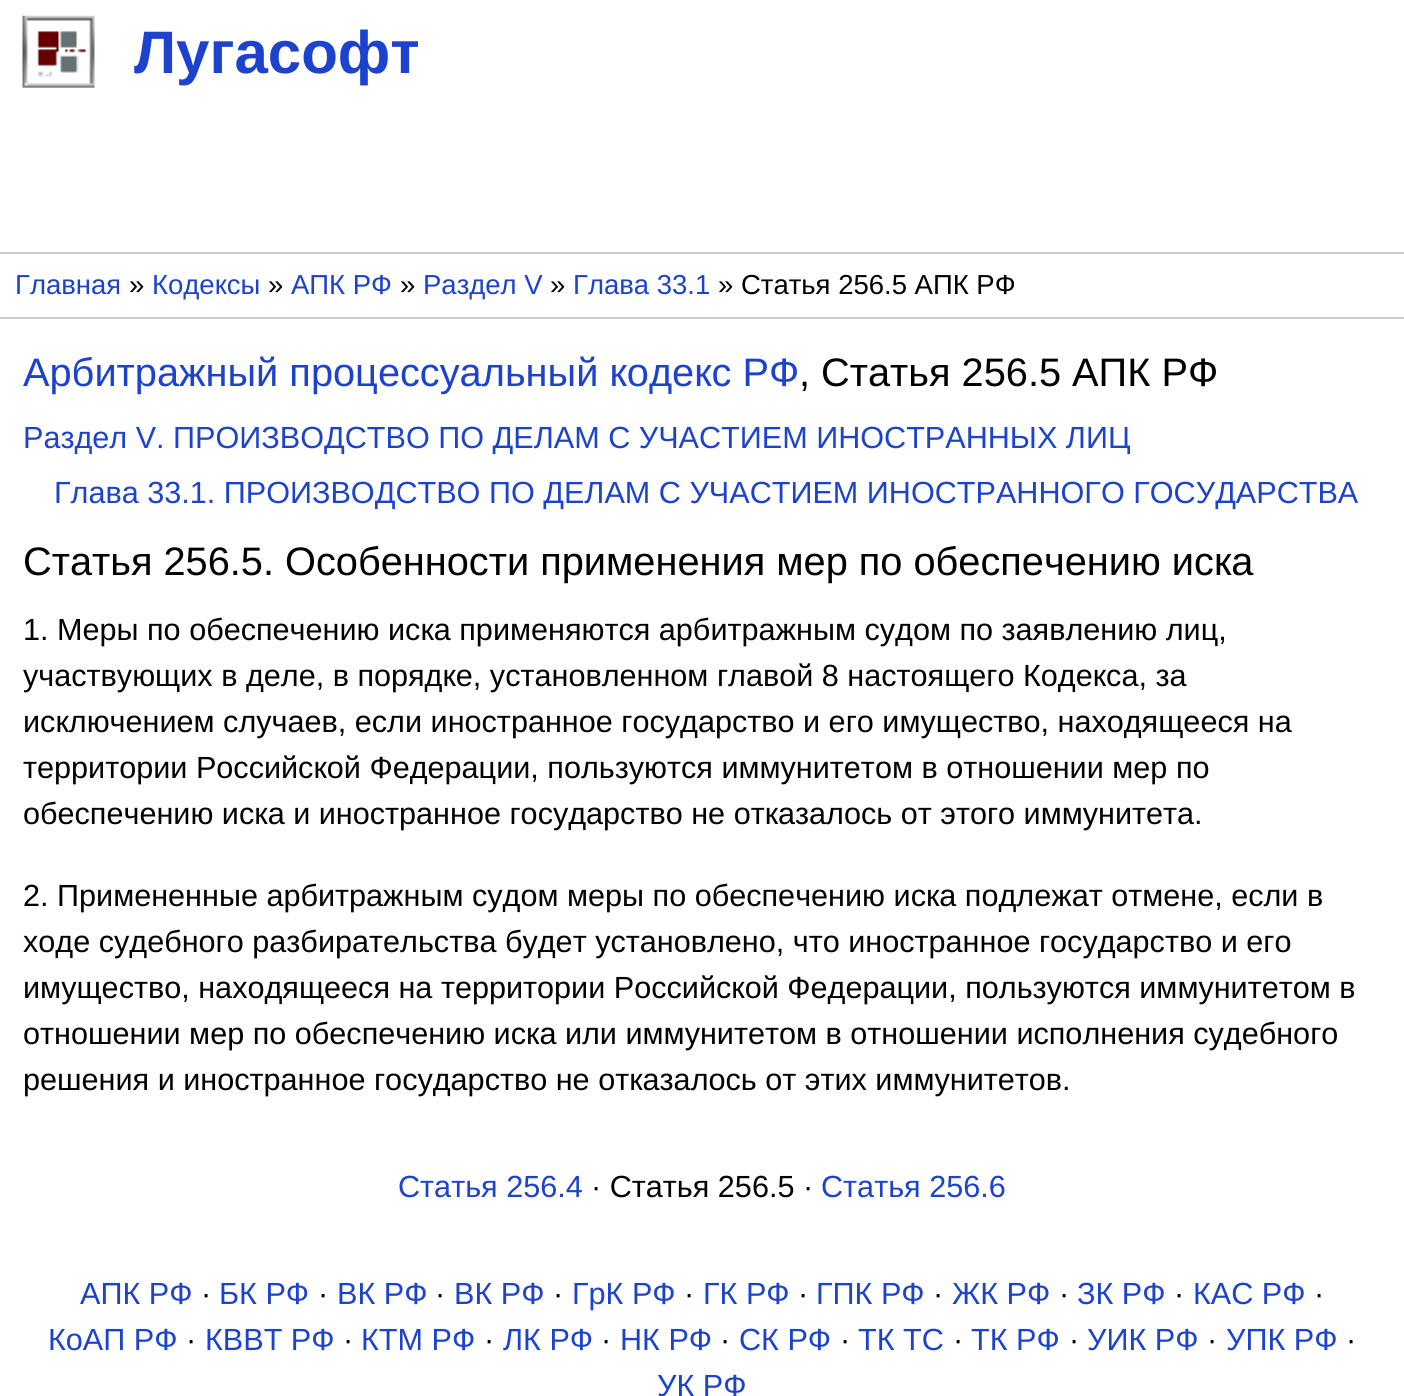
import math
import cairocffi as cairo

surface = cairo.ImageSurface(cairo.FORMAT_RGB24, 1404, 1396)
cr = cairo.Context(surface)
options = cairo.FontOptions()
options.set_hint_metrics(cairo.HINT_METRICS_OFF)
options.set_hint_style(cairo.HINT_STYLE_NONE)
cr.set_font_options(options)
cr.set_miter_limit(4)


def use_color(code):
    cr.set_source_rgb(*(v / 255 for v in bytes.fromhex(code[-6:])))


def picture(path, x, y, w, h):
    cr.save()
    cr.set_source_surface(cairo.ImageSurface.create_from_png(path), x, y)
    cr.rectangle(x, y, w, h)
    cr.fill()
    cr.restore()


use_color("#ffffff")
cr.paint()
picture("img1.png", 22, 15, 73, 73)
cr.select_font_face("Liberation Sans", cairo.FONT_SLANT_NORMAL, cairo.FONT_WEIGHT_BOLD)
cr.set_font_size(60)
use_color("#1c42ce")
cr.move_to(134, 73)
cr.show_text("Лугасофт")
use_color("#cccccc")
cr.rectangle(0, 252, 1404, 2)
cr.fill()
cr.rectangle(0, 317, 1404, 2)
cr.fill()
cr.select_font_face("Liberation Sans")
cr.set_font_size(27.5)
use_color("#1c42ce")
cr.move_to(15, 294)
cr.show_text("Главная")
use_color("#000000")
cr.move_to(129, 294)
cr.show_text("»")
use_color("#1c42ce")
cr.move_to(152, 294)
cr.show_text("Кодексы")
use_color("#000000")
cr.move_to(268, 294)
cr.show_text("»")
use_color("#1c42ce")
cr.move_to(291, 294)
cr.show_text("АПК РФ")
use_color("#000000")
cr.move_to(400, 294)
cr.show_text("»")
use_color("#1c42ce")
cr.move_to(423, 294)
cr.show_text("Раздел V")
use_color("#000000")
cr.move_to(550, 294)
cr.show_text("»")
use_color("#1c42ce")
cr.move_to(573, 294)
cr.show_text("Глава 33.1")
use_color("#000000")
cr.move_to(718, 294)
cr.show_text("» Статья 256.5 АПК РФ")
cr.set_font_size(39.75)
use_color("#1c42ce")
cr.move_to(23, 386)
cr.show_text("Арбитражный процессуальный кодекс РФ")
use_color("#000000")
cr.move_to(799, 386)
cr.show_text(", Статья 256.5 АПК РФ")
cr.set_font_size(30.6)
use_color("#1c42ce")
cr.move_to(23, 448)
cr.show_text("Раздел V. ПРОИЗВОДСТВО ПО ДЕЛАМ С УЧАСТИЕМ ИНОСТРАННЫХ ЛИЦ")
cr.move_to(54, 503)
cr.show_text("Глава 33.1. ПРОИЗВОДСТВО ПО ДЕЛАМ С УЧАСТИЕМ ИНОСТРАННОГО ГОСУДАРСТВА")
cr.set_font_size(39.75)
use_color("#000000")
cr.move_to(23, 575)
cr.show_text("Статья 256.5. Особенности применения мер по обеспечению иска")
cr.set_font_size(30.6)
cr.move_to(23, 640)
cr.show_text("1. Меры по обеспечению иска применяются арбитражным судом по заявлению лиц,")
cr.move_to(23, 686)
cr.show_text("участвующих в деле, в порядке, установленном главой 8 настоящего Кодекса, за")
cr.move_to(23, 732)
cr.show_text("исключением случаев, если иностранное государство и его имущество, находящееся на")
cr.move_to(23, 778)
cr.show_text("территории Российской Федерации, пользуются иммунитетом в отношении мер по")
cr.move_to(23, 824)
cr.show_text("обеспечению иска и иностранное государство не отказалось от этого иммунитета.")
cr.move_to(23, 906)
cr.show_text("2. Примененные арбитражным судом меры по обеспечению иска подлежат отмене, если в")
cr.move_to(23, 952)
cr.show_text("ходе судебного разбирательства будет установлено, что иностранное государство и его")
cr.move_to(23, 998)
cr.show_text("имущество, находящееся на территории Российской Федерации, пользуются иммунитетом в")
cr.move_to(23, 1044)
cr.show_text("отношении мер по обеспечению иска или иммунитетом в отношении исполнения судебного")
cr.move_to(23, 1090)
cr.show_text("решения и иностранное государство не отказалось от этих иммунитетов.")
use_color("#1c42ce")
cr.move_to(398, 1197)
cr.show_text("Статья 256.4")
use_color("#000000")
cr.move_to(591, 1197)
cr.show_text("· Статья 256.5 ·")
use_color("#1c42ce")
cr.move_to(821, 1197)
cr.show_text("Статья 256.6")
cr.move_to(80, 1304)
cr.show_text("АПК РФ")
use_color("#000000")
cr.move_to(201, 1304)
cr.show_text("·")
use_color("#1c42ce")
cr.move_to(219, 1304)
cr.show_text("БК РФ")
use_color("#000000")
cr.move_to(318, 1304)
cr.show_text("·")
use_color("#1c42ce")
cr.move_to(337, 1304)
cr.show_text("ВК РФ")
use_color("#000000")
cr.move_to(435, 1304)
cr.show_text("·")
use_color("#1c42ce")
cr.move_to(454, 1304)
cr.show_text("ВК РФ")
use_color("#000000")
cr.move_to(553, 1304)
cr.show_text("·")
use_color("#1c42ce")
cr.move_to(572, 1304)
cr.show_text("ГрК РФ")
use_color("#000000")
cr.move_to(684, 1304)
cr.show_text("·")
use_color("#1c42ce")
cr.move_to(703, 1304)
cr.show_text("ГК РФ")
use_color("#000000")
cr.move_to(798, 1304)
cr.show_text("·")
use_color("#1c42ce")
cr.move_to(816, 1304)
cr.show_text("ГПК РФ")
use_color("#000000")
cr.move_to(933, 1304)
cr.show_text("·")
use_color("#1c42ce")
cr.move_to(952, 1304)
cr.show_text("ЖК РФ")
use_color("#000000")
cr.move_to(1059, 1304)
cr.show_text("·")
use_color("#1c42ce")
cr.move_to(1077, 1304)
cr.show_text("ЗК РФ")
use_color("#000000")
cr.move_to(1174, 1304)
cr.show_text("·")
use_color("#1c42ce")
cr.move_to(1193, 1304)
cr.show_text("КАС РФ")
use_color("#000000")
cr.move_to(1314, 1304)
cr.show_text("·")
use_color("#1c42ce")
cr.move_to(48, 1350)
cr.show_text("КоАП РФ")
use_color("#000000")
cr.move_to(186, 1350)
cr.show_text("·")
use_color("#1c42ce")
cr.move_to(205, 1350)
cr.show_text("КВВТ РФ")
use_color("#000000")
cr.move_to(343, 1350)
cr.show_text("·")
use_color("#1c42ce")
cr.move_to(361, 1350)
cr.show_text("КТМ РФ")
use_color("#000000")
cr.move_to(484, 1350)
cr.show_text("·")
use_color("#1c42ce")
cr.move_to(503, 1350)
cr.show_text("ЛК РФ")
use_color("#000000")
cr.move_to(601, 1350)
cr.show_text("·")
use_color("#1c42ce")
cr.move_to(620, 1350)
cr.show_text("НК РФ")
use_color("#000000")
cr.move_to(720, 1350)
cr.show_text("·")
use_color("#1c42ce")
cr.move_to(739, 1350)
cr.show_text("СК РФ")
use_color("#000000")
cr.move_to(840, 1350)
cr.show_text("·")
use_color("#1c42ce")
cr.move_to(858, 1350)
cr.show_text("ТК TC")
use_color("#000000")
cr.move_to(953, 1350)
cr.show_text("·")
use_color("#1c42ce")
cr.move_to(971, 1350)
cr.show_text("ТК РФ")
use_color("#000000")
cr.move_to(1069, 1350)
cr.show_text("·")
use_color("#1c42ce")
cr.move_to(1087, 1350)
cr.show_text("УИК РФ")
use_color("#000000")
cr.move_to(1207, 1350)
cr.show_text("·")
use_color("#1c42ce")
cr.move_to(1226, 1350)
cr.show_text("УПК РФ")
use_color("#000000")
cr.move_to(1346, 1350)
cr.show_text("·")
use_color("#1c42ce")
cr.move_to(657, 1396)
cr.show_text("УК РФ")
surface.write_to_png("result.png")
